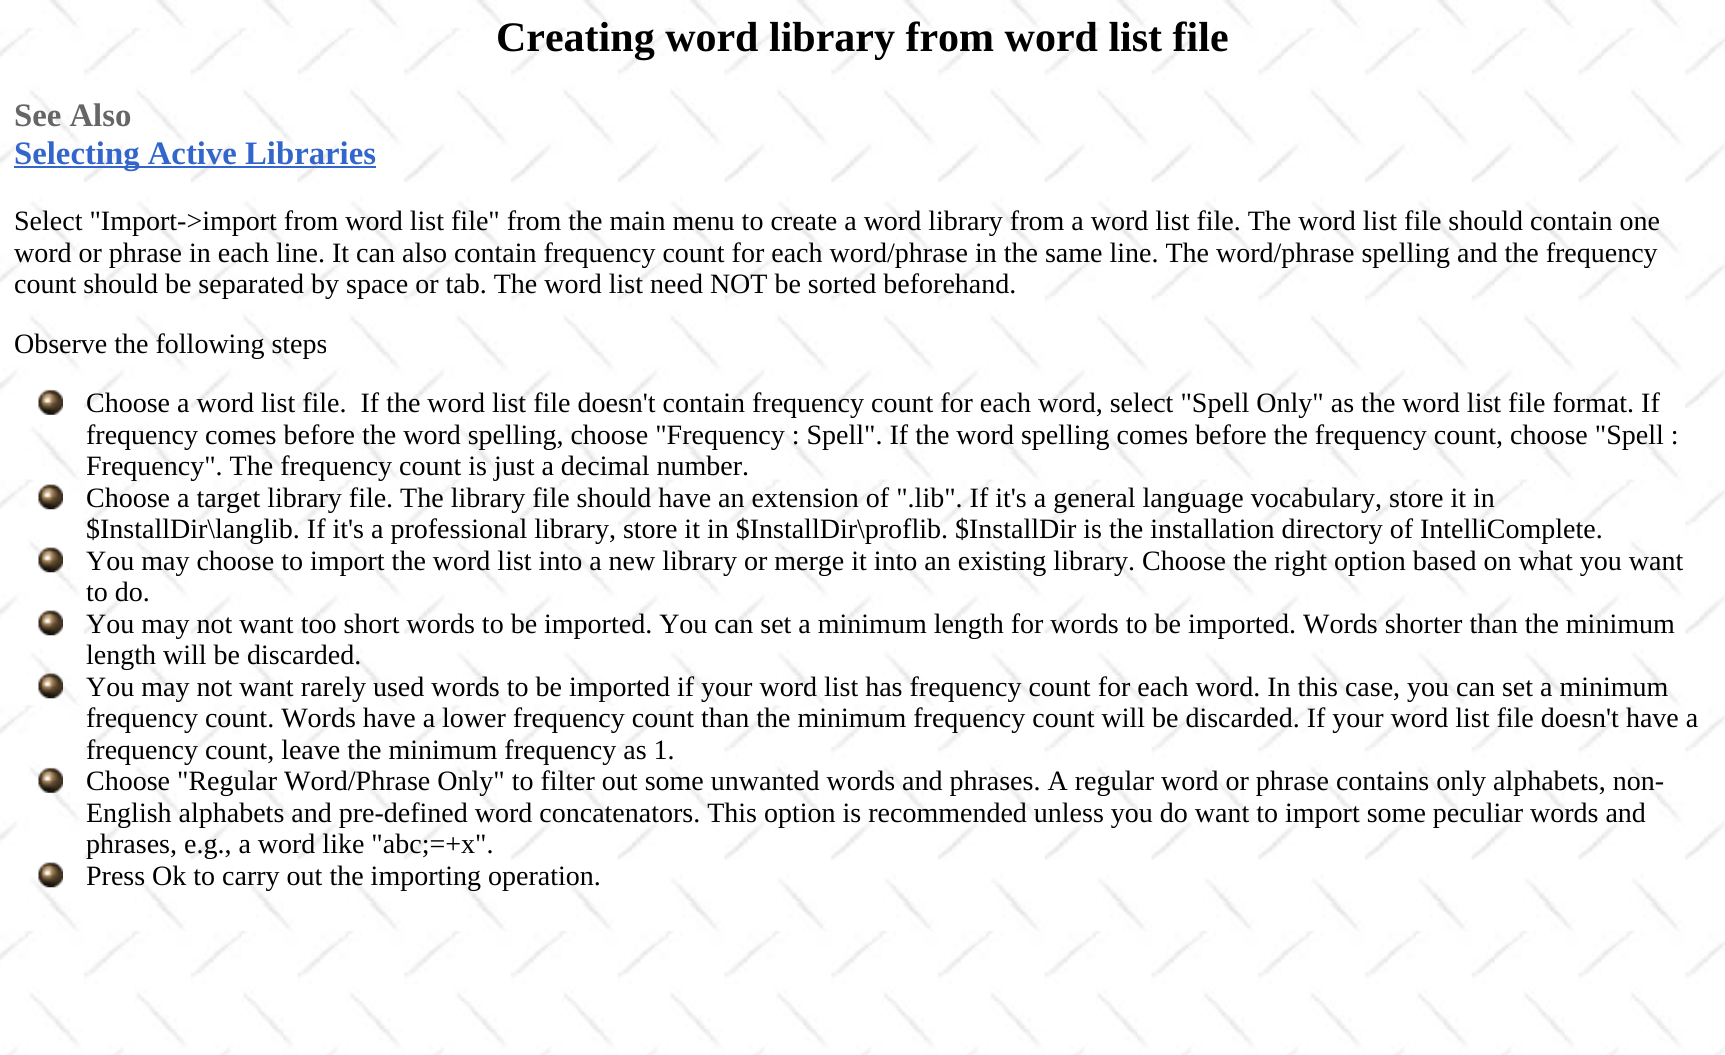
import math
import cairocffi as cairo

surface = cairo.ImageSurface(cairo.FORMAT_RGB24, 1725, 1055)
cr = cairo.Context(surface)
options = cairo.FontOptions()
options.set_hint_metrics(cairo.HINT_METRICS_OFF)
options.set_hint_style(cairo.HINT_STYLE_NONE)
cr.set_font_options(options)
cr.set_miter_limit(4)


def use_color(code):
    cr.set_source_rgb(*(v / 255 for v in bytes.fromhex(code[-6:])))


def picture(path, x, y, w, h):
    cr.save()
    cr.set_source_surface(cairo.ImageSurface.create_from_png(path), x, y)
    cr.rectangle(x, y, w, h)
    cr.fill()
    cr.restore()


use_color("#ffffff")
cr.paint()
picture("img1.png", 0, 0, 1725, 1055)
cr.select_font_face("Liberation Serif", cairo.FONT_SLANT_NORMAL, cairo.FONT_WEIGHT_BOLD)
cr.set_font_size(42)
use_color("#000000")
cr.move_to(496, 51)
cr.show_text("Creating word library from word list file")
cr.set_font_size(32.75)
use_color("#666666")
cr.move_to(14, 126)
cr.show_text("See Also")
use_color("#3366cc")
cr.rectangle(14, 166, 362, 2)
cr.fill()
cr.move_to(14, 164)
cr.show_text("Selecting Active Libraries")
cr.select_font_face("Liberation Serif")
cr.set_font_size(28)
use_color("#000000")
cr.move_to(14, 230)
cr.show_text("Select \"Import->import from word list file\" from the main menu to create a word library from a word list file. The word list file should contain one")
cr.move_to(14, 262)
cr.show_text("word or phrase in each line. It can also contain frequency count for each word/phrase in the same line. The word/phrase spelling and the frequency")
cr.move_to(14, 293)
cr.show_text("count should be separated by space or tab. The word list need NOT be sorted beforehand.")
cr.move_to(14, 353)
cr.show_text("Observe the following steps")
picture("img2.png", 38, 389, 25, 26)
cr.move_to(86, 412)
cr.show_text("Choose a word list file.  If the word list file doesn't contain frequency count for each word, select \"Spell Only\" as the word list file format. If")
cr.move_to(86, 444)
cr.show_text("frequency comes before the word spelling, choose \"Frequency : Spell\". If the word spelling comes before the frequency count, choose \"Spell :")
cr.move_to(86, 475)
cr.show_text("Frequency\". The frequency count is just a decimal number.")
picture("img3.png", 38, 484, 25, 26)
cr.move_to(86, 507)
cr.show_text("Choose a target library file. The library file should have an extension of \".lib\". If it's a general language vocabulary, store it in")
cr.move_to(86, 538)
cr.show_text("$InstallDir\\langlib. If it's a professional library, store it in $InstallDir\\proflib. $InstallDir is the installation directory of IntelliComplete.")
picture("img4.png", 38, 547, 25, 26)
cr.move_to(86, 570)
cr.show_text("You may choose to import the word list into a new library or merge it into an existing library. Choose the right option based on what you want")
cr.move_to(86, 601)
cr.show_text("to do.")
picture("img5.png", 38, 610, 25, 26)
cr.move_to(86, 633)
cr.show_text("You may not want too short words to be imported. You can set a minimum length for words to be imported. Words shorter than the minimum")
cr.move_to(86, 664)
cr.show_text("length will be discarded.")
picture("img6.png", 38, 673, 25, 26)
cr.move_to(86, 696)
cr.show_text("You may not want rarely used words to be imported if your word list has frequency count for each word. In this case, you can set a minimum")
cr.move_to(86, 727)
cr.show_text("frequency count. Words have a lower frequency count than the minimum frequency count will be discarded. If your word list file doesn't have a")
cr.move_to(86, 759)
cr.show_text("frequency count, leave the minimum frequency as 1.")
picture("img7.png", 38, 767, 25, 26)
cr.move_to(86, 790)
cr.show_text("Choose \"Regular Word/Phrase Only\" to filter out some unwanted words and phrases. A regular word or phrase contains only alphabets, non-")
cr.move_to(86, 822)
cr.show_text("English alphabets and pre-defined word concatenators. This option is recommended unless you do want to import some peculiar words and")
cr.move_to(86, 853)
cr.show_text("phrases, e.g., a word like \"abc;=+x\".")
picture("img8.png", 38, 862, 25, 26)
cr.move_to(86, 885)
cr.show_text("Press Ok to carry out the importing operation.")
surface.write_to_png("result.png")
